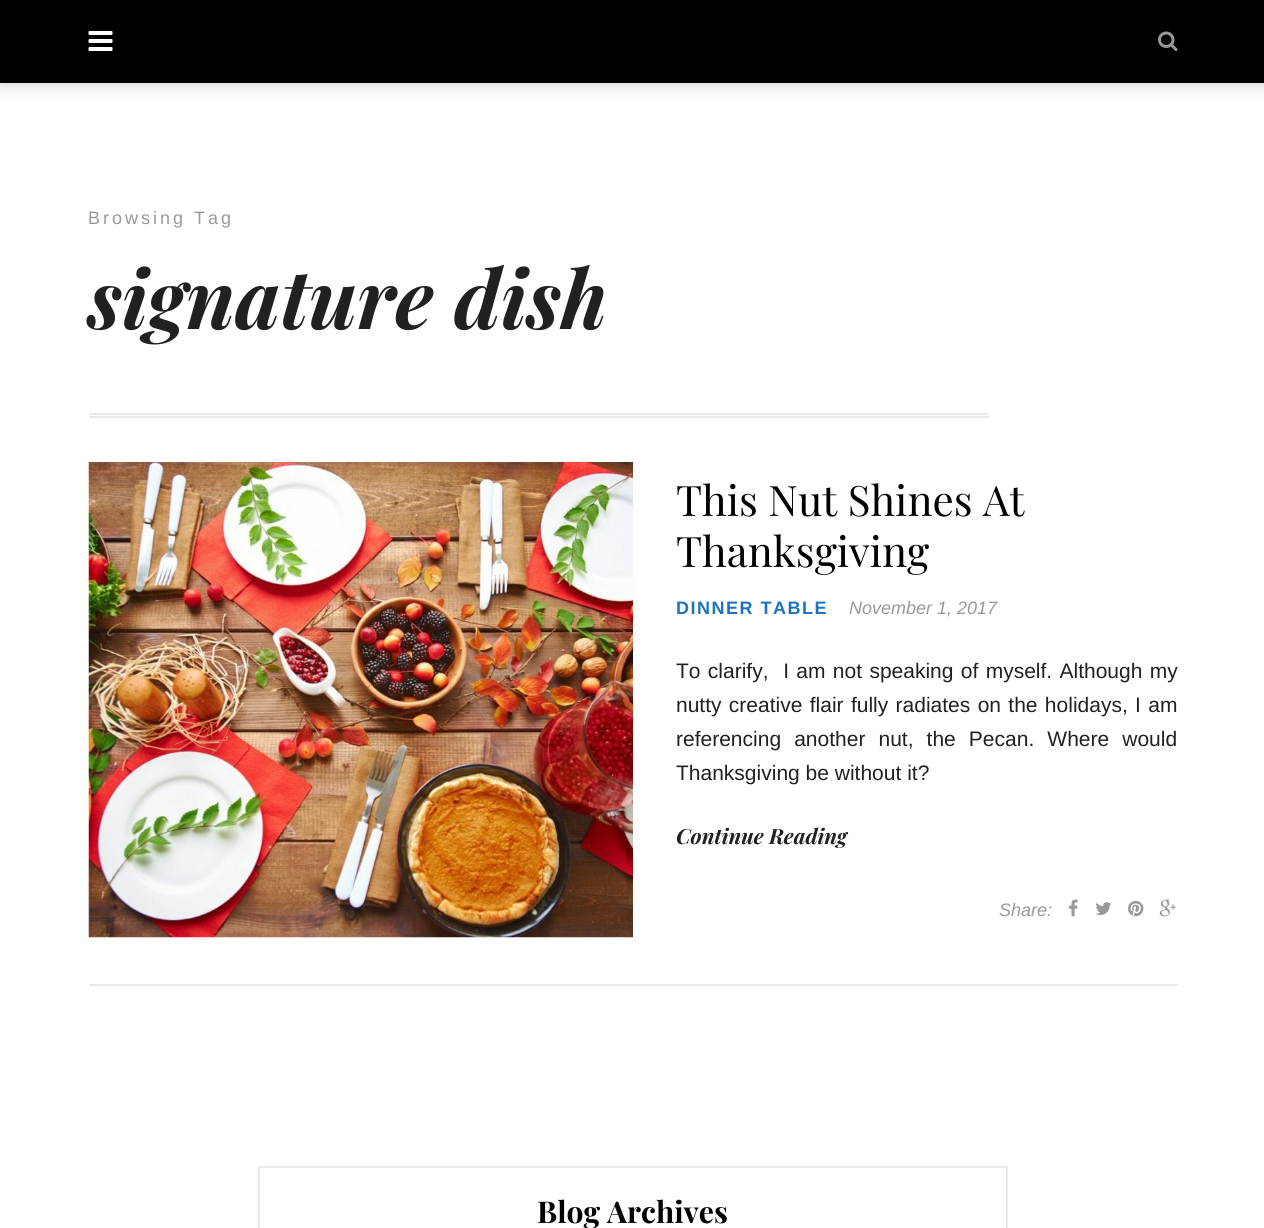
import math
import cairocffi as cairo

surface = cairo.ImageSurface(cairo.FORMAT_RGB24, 1264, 1228)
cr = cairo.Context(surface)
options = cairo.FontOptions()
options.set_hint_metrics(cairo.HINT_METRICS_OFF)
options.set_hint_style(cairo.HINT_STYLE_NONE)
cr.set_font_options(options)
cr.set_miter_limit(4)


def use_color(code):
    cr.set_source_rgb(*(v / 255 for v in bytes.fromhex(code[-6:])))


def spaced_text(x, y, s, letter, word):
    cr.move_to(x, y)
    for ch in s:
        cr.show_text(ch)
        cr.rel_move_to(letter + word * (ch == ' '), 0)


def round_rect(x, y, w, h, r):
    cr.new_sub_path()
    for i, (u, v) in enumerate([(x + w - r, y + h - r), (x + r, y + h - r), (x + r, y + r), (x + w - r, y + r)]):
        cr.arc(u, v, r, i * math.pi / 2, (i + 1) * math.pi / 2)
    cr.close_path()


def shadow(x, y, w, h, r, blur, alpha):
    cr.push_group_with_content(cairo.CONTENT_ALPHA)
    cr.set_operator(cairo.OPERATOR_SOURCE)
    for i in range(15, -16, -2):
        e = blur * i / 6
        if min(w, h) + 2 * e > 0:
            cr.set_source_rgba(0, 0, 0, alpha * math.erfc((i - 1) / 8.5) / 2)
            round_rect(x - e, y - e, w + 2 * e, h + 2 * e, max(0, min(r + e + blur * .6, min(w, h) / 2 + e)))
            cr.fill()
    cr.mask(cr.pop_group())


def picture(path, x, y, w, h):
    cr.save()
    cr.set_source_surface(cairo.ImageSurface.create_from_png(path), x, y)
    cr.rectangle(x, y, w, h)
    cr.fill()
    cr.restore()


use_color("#ffffff")
cr.paint()
use_color("#646464")
shadow(0, 2, 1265, 82, 0, 7.5, 0.32)
use_color("#000000")
cr.rectangle(0, 0, 1264, 83)
cr.fill()
picture("img1.png", 88, 31, 25, 20)
picture("img2.png", 1158, 31, 20, 20)
use_color("#eaeaea")
cr.rectangle(89, 413, 900, 2)
cr.fill()
cr.rectangle(89, 416, 900, 2)
cr.fill()
cr.select_font_face("Liberation Sans")
cr.set_font_size(18)
use_color("#999999")
spaced_text(88, 224, "Browsing Tag", 3, 0)
cr.select_font_face("Playfair Display", cairo.FONT_SLANT_ITALIC, cairo.FONT_WEIGHT_BOLD)
cr.set_font_size(81)
use_color("#212121")
cr.move_to(88, 329)
cr.show_text("signature dish")
use_color("#eaeaea")
cr.rectangle(89, 984, 1089, 2)
cr.fill()
picture("img3.png", 88, 462, 545, 476)
cr.select_font_face("Playfair Display")
cr.set_font_size(42)
use_color("#000000")
cr.move_to(676, 516)
cr.show_text("This Nut Shines At")
cr.move_to(676, 567)
cr.show_text("Thanksgiving")
cr.select_font_face("Liberation Sans", cairo.FONT_SLANT_NORMAL, cairo.FONT_WEIGHT_BOLD)
cr.set_font_size(18)
use_color("#1e73be")
spaced_text(676, 614, "DINNER TABLE", 1.5, 0)
cr.select_font_face("Liberation Sans", cairo.FONT_SLANT_ITALIC)
use_color("#999999")
cr.move_to(849, 614)
cr.show_text("November 1, 2017")
cr.select_font_face("Liberation Sans")
cr.set_font_size(21)
use_color("#212121")
spaced_text(676, 678, "To clarify,  I am not speaking of myself. Although my", 0, 1.5)
spaced_text(676, 712, "nutty creative flair fully radiates on the holidays, I am", 0, 1.5)
spaced_text(676, 746, "referencing another nut, the Pecan. Where would", 0, 7.25)
cr.move_to(676, 780)
cr.show_text("Thanksgiving be without it?")
cr.select_font_face("Playfair Display", cairo.FONT_SLANT_ITALIC, cairo.FONT_WEIGHT_BOLD)
cr.move_to(676, 844)
cr.show_text("Continue Reading")
cr.select_font_face("Liberation Sans", cairo.FONT_SLANT_ITALIC)
cr.set_font_size(18)
use_color("#999999")
cr.move_to(999, 916)
cr.show_text("Share:")
picture("img4.png", 1068, 899, 10, 18)
picture("img5.png", 1095, 902, 16, 13)
picture("img6.png", 1128, 900, 16, 17)
picture("img7.png", 1159, 899, 17, 18)
cr.rectangle(259, 1167, 748, 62)
use_color("#eaeaea")
cr.stroke()
cr.select_font_face("Playfair Display", cairo.FONT_SLANT_NORMAL, cairo.FONT_WEIGHT_BOLD)
cr.set_font_size(30)
use_color("#000000")
cr.move_to(537, 1223)
cr.show_text("Blog Archives")
surface.write_to_png("result.png")
